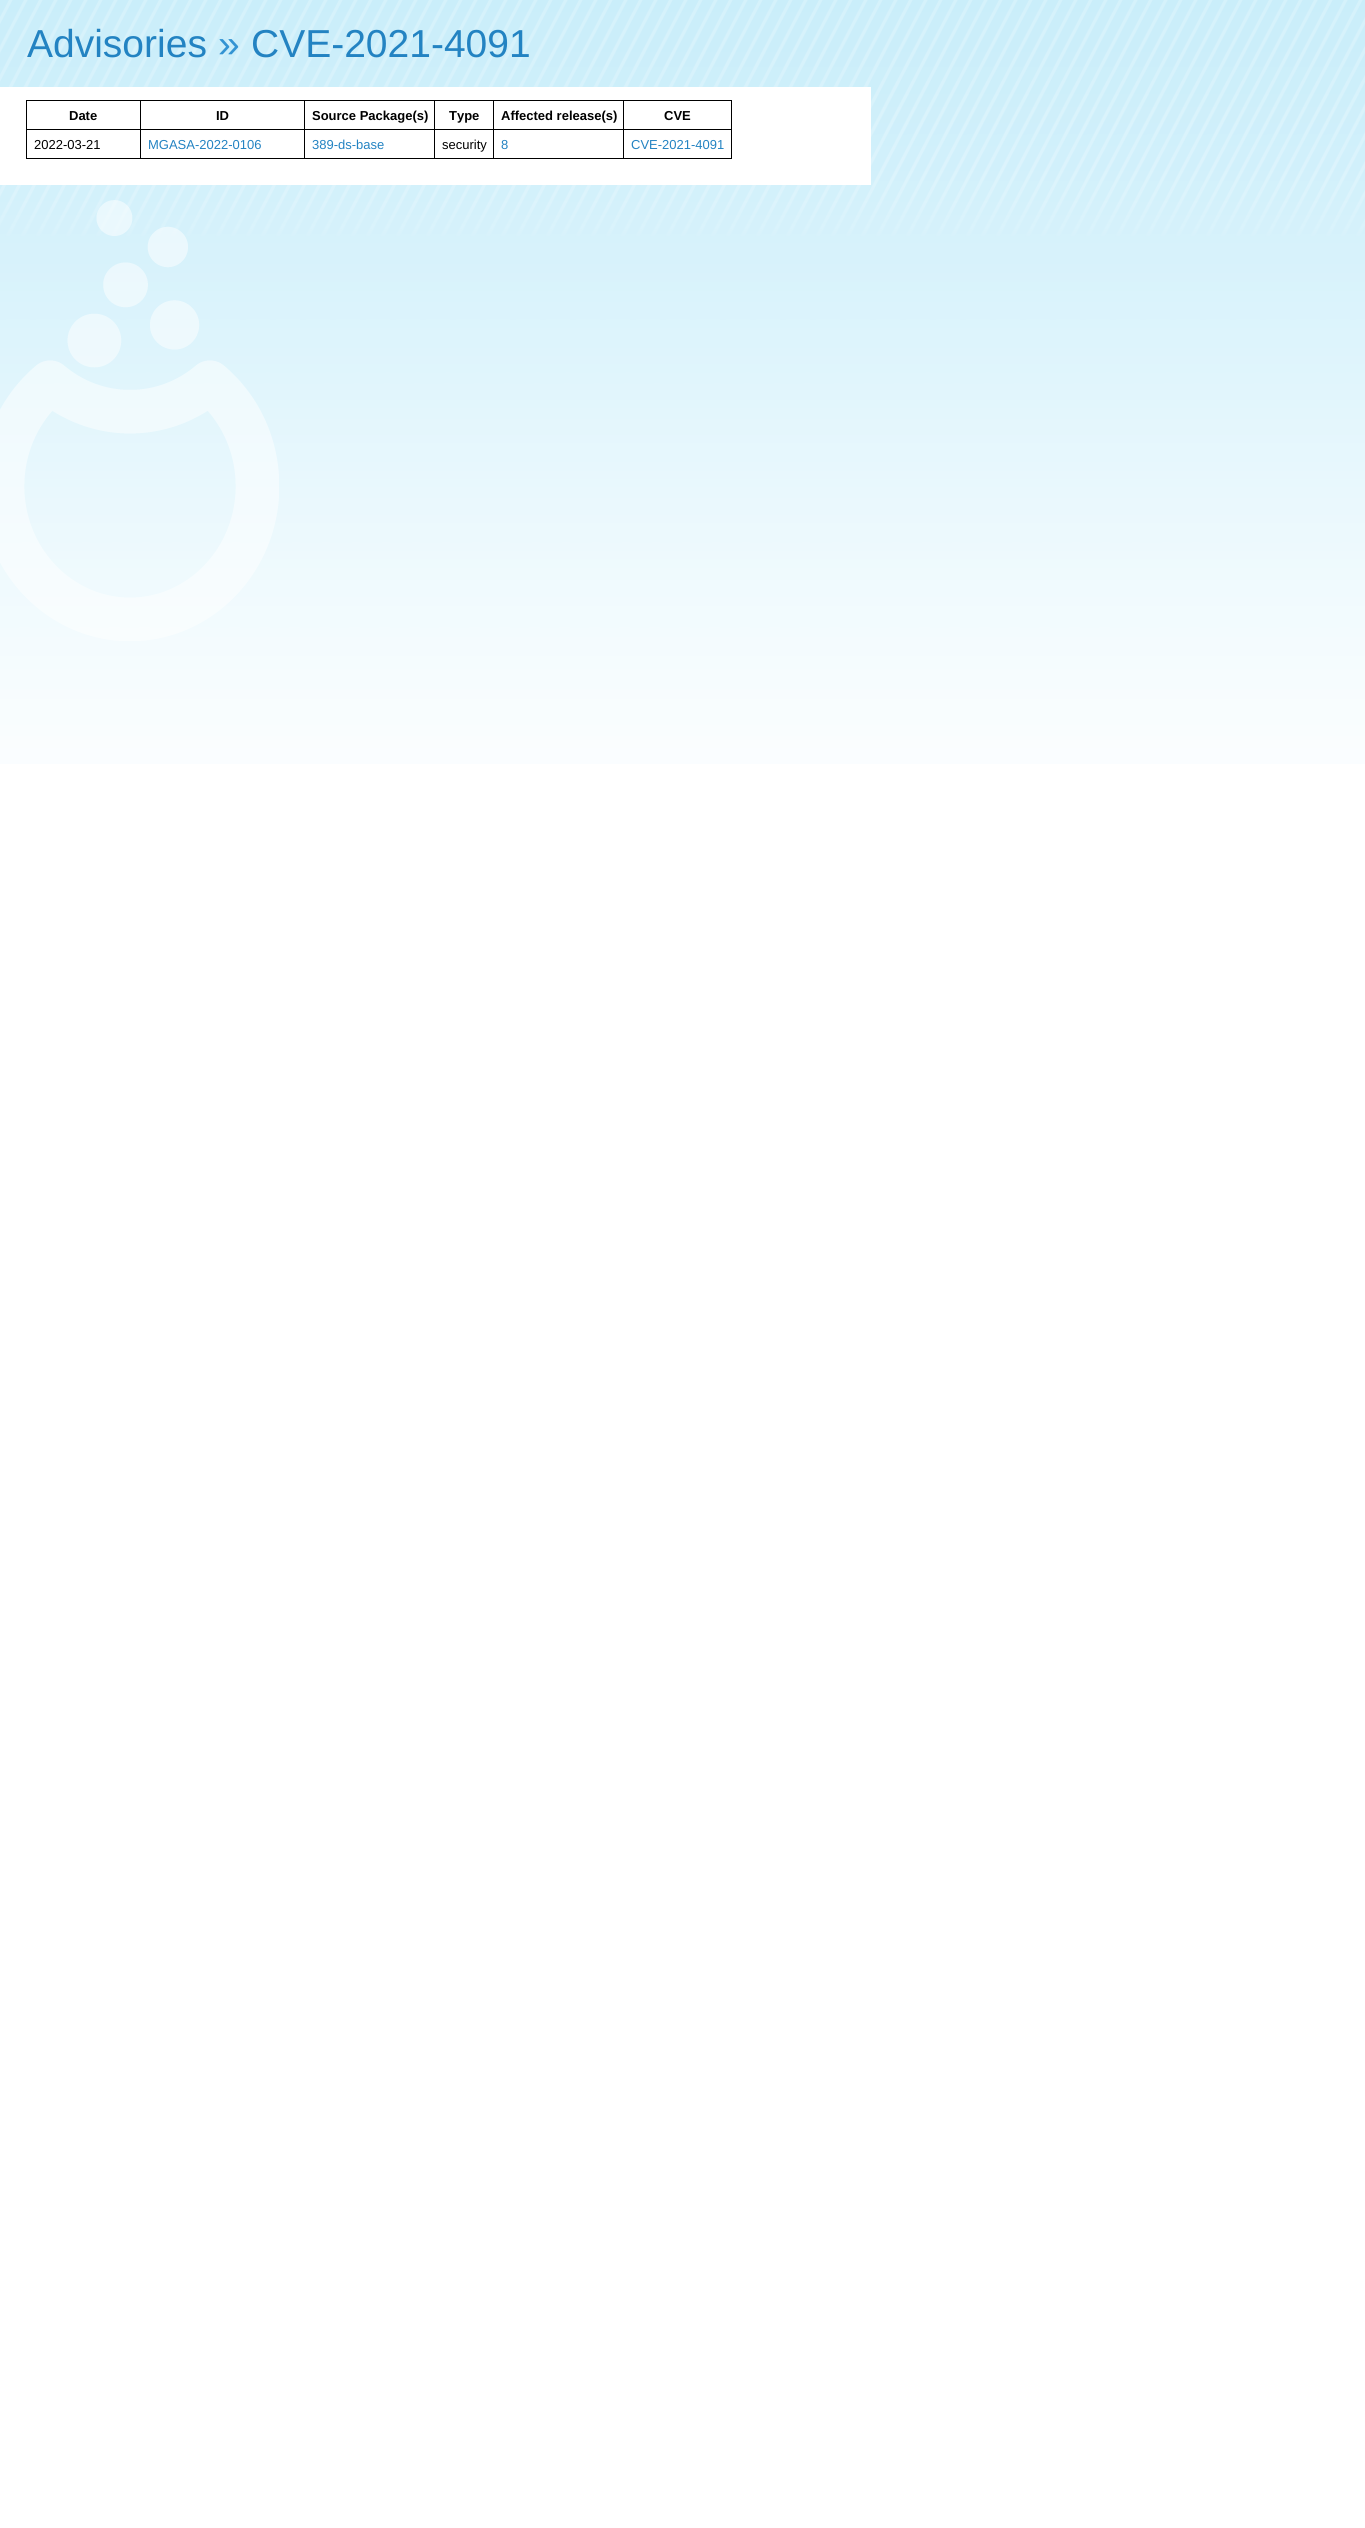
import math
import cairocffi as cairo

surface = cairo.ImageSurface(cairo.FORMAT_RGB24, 1365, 2528)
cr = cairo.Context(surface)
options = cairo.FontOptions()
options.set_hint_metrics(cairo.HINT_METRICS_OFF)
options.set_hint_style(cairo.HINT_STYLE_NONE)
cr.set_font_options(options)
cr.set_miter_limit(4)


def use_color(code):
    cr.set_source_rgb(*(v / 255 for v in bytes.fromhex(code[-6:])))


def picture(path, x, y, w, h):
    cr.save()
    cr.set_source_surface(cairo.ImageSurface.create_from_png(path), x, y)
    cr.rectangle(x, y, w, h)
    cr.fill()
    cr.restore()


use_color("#ffffff")
cr.paint()
picture("img1.png", 0, 0, 1365, 764)
picture("img2.png", 0, 200, 279, 441)
cr.select_font_face("Liberation Sans")
cr.set_font_size(39)
use_color("#2383c2")
cr.move_to(27, 57)
cr.show_text("Advisories")
use_color("#3494d3")
cr.move_to(218, 57)
cr.show_text("»")
use_color("#2383c2")
cr.move_to(251, 57)
cr.show_text("CVE-2021-4091")
use_color("#ffffff")
cr.rectangle(0, 87, 871, 98)
cr.fill()
use_color("#000000")
cr.rectangle(623, 100, 109, 1)
cr.fill()
cr.rectangle(623, 129, 109, 1)
cr.fill()
cr.rectangle(731, 129, 1, 30)
cr.fill()
cr.rectangle(623, 158, 109, 1)
cr.fill()
cr.rectangle(623, 129, 1, 30)
cr.fill()
cr.rectangle(493, 129, 131, 1)
cr.fill()
cr.rectangle(623, 100, 1, 30)
cr.fill()
cr.rectangle(493, 100, 131, 1)
cr.fill()
cr.rectangle(493, 158, 131, 1)
cr.fill()
cr.rectangle(493, 129, 1, 30)
cr.fill()
cr.rectangle(434, 129, 60, 1)
cr.fill()
cr.rectangle(493, 100, 1, 30)
cr.fill()
cr.rectangle(434, 100, 60, 1)
cr.fill()
cr.rectangle(434, 158, 60, 1)
cr.fill()
cr.rectangle(434, 129, 1, 30)
cr.fill()
cr.rectangle(304, 129, 131, 1)
cr.fill()
cr.rectangle(434, 100, 1, 30)
cr.fill()
cr.rectangle(304, 100, 131, 1)
cr.fill()
cr.rectangle(304, 158, 131, 1)
cr.fill()
cr.rectangle(304, 129, 1, 30)
cr.fill()
cr.rectangle(140, 129, 165, 1)
cr.fill()
cr.rectangle(304, 100, 1, 30)
cr.fill()
cr.rectangle(140, 100, 165, 1)
cr.fill()
cr.rectangle(140, 158, 165, 1)
cr.fill()
cr.rectangle(140, 129, 1, 30)
cr.fill()
cr.rectangle(26, 129, 115, 1)
cr.fill()
cr.rectangle(140, 100, 1, 30)
cr.fill()
cr.rectangle(26, 100, 115, 1)
cr.fill()
cr.rectangle(26, 158, 115, 1)
cr.fill()
cr.rectangle(26, 129, 1, 30)
cr.fill()
cr.rectangle(26, 100, 1, 30)
cr.fill()
cr.select_font_face("Liberation Sans", cairo.FONT_SLANT_NORMAL, cairo.FONT_WEIGHT_BOLD)
cr.set_font_size(13)
cr.move_to(69, 120)
cr.show_text("Date")
cr.move_to(216, 120)
cr.show_text("ID")
cr.move_to(312, 120)
cr.show_text("Source Package(s)")
cr.move_to(449, 120)
cr.show_text("Type")
cr.move_to(501, 120)
cr.show_text("Affected release(s)")
cr.rectangle(731, 100, 1, 30)
cr.fill()
cr.move_to(664, 120)
cr.show_text("CVE")
cr.select_font_face("Liberation Sans")
cr.move_to(34, 149)
cr.show_text("2022-03-21")
use_color("#2383c2")
cr.move_to(148, 149)
cr.show_text("MGASA-2022-0106")
cr.move_to(312, 149)
cr.show_text("389-ds-base")
use_color("#000000")
cr.move_to(442, 149)
cr.show_text("security")
use_color("#2383c2")
cr.move_to(501, 149)
cr.show_text("8")
cr.move_to(631, 149)
cr.show_text("CVE-2021-4091")
surface.write_to_png("result.png")
